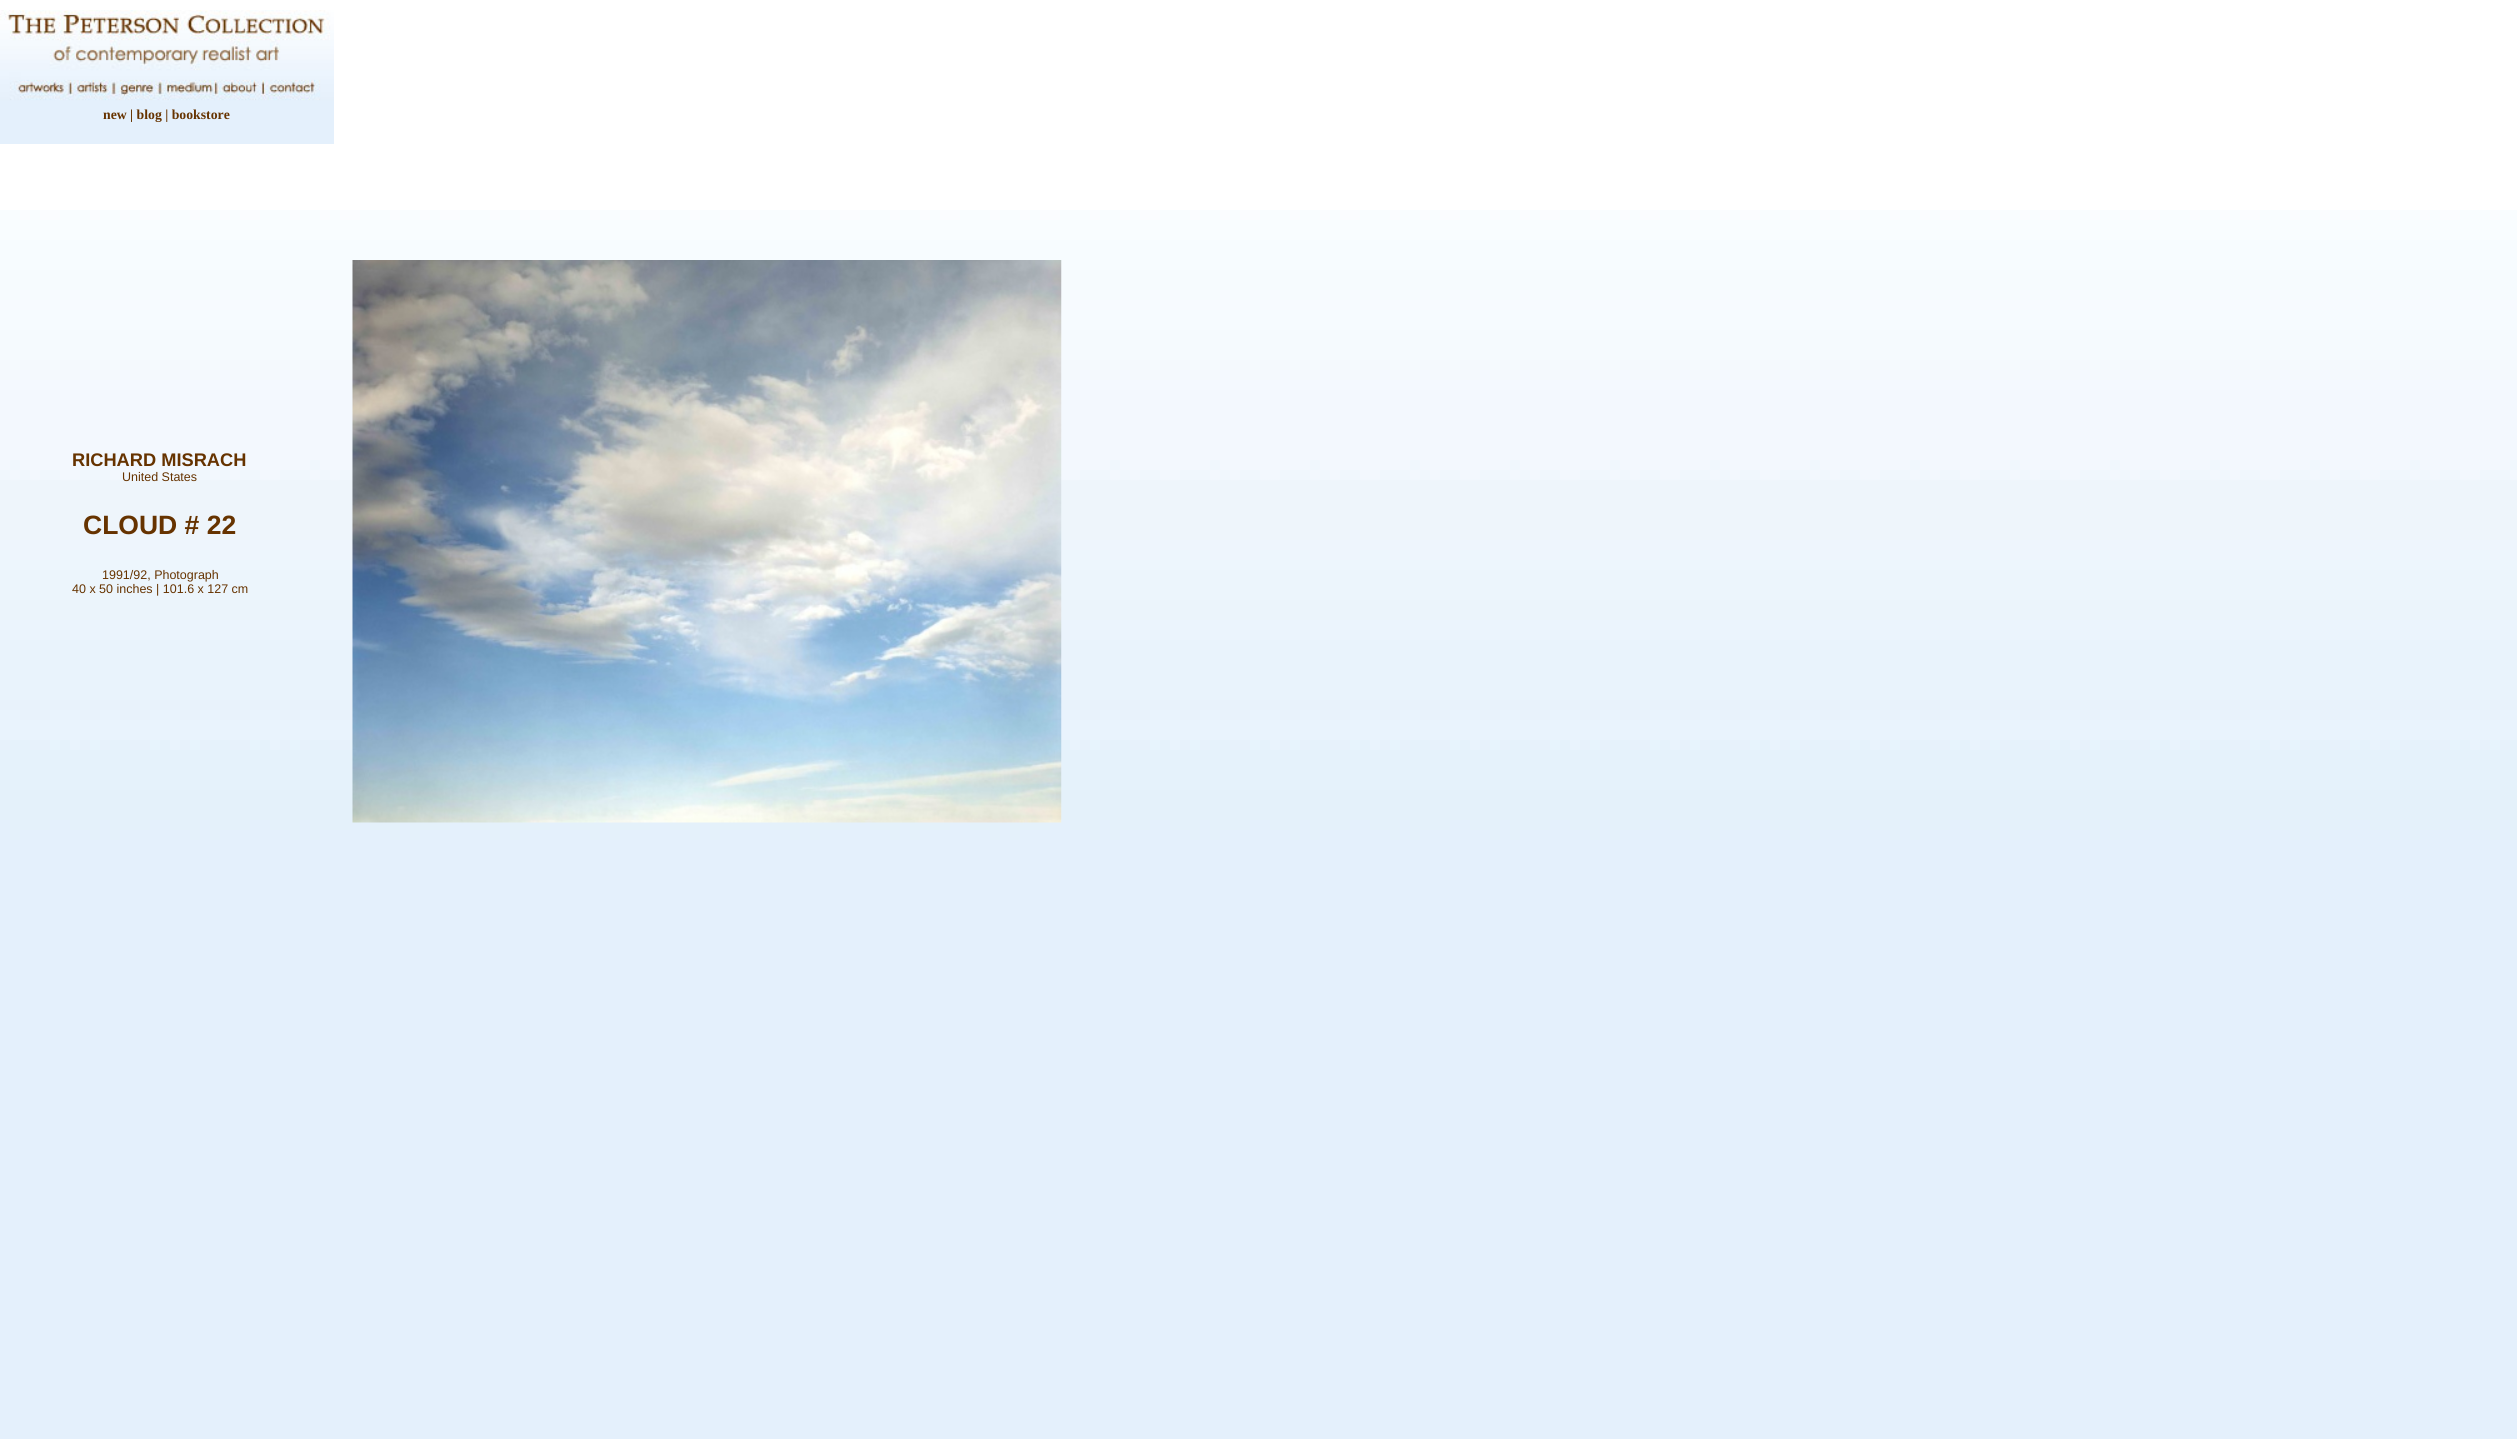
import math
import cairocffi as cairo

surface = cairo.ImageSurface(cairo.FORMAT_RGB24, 2517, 1439)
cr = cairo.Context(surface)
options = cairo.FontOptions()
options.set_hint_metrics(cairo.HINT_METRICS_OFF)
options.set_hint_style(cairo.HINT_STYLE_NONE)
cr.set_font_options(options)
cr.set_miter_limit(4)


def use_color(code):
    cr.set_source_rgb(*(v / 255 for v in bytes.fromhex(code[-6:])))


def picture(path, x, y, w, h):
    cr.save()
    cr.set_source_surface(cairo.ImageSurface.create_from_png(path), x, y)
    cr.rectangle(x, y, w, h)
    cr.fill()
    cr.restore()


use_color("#ffffff")
cr.paint()
picture("img1.png", 0, 210, 2517, 1229)
picture("img2.png", 0, 10, 334, 96)
use_color("#e4f0fc")
cr.rectangle(0, 106, 334, 38)
cr.fill()
cr.select_font_face("Liberation Serif", cairo.FONT_SLANT_NORMAL, cairo.FONT_WEIGHT_BOLD)
cr.set_font_size(13.75)
use_color("#663300")
cr.move_to(103, 119)
cr.show_text("new | blog | bookstore")
cr.select_font_face("Liberation Sans", cairo.FONT_SLANT_NORMAL, cairo.FONT_WEIGHT_BOLD)
cr.set_font_size(18.25)
cr.move_to(72, 466)
cr.show_text("RICHARD MISRACH")
cr.select_font_face("Liberation Sans")
cr.set_font_size(12.5)
cr.move_to(122, 481)
cr.show_text("United States")
cr.select_font_face("Liberation Sans", cairo.FONT_SLANT_NORMAL, cairo.FONT_WEIGHT_BOLD)
cr.set_font_size(26.5)
cr.move_to(83, 534)
cr.show_text("CLOUD # 22")
cr.select_font_face("Liberation Sans")
cr.set_font_size(12.5)
cr.move_to(102, 579)
cr.show_text("1991/92, Photograph")
cr.move_to(72, 593)
cr.show_text("40 x 50 inches | 101.6 x 127 cm")
picture("img3.png", 352, 260, 710, 563)
surface.write_to_png("result.png")
